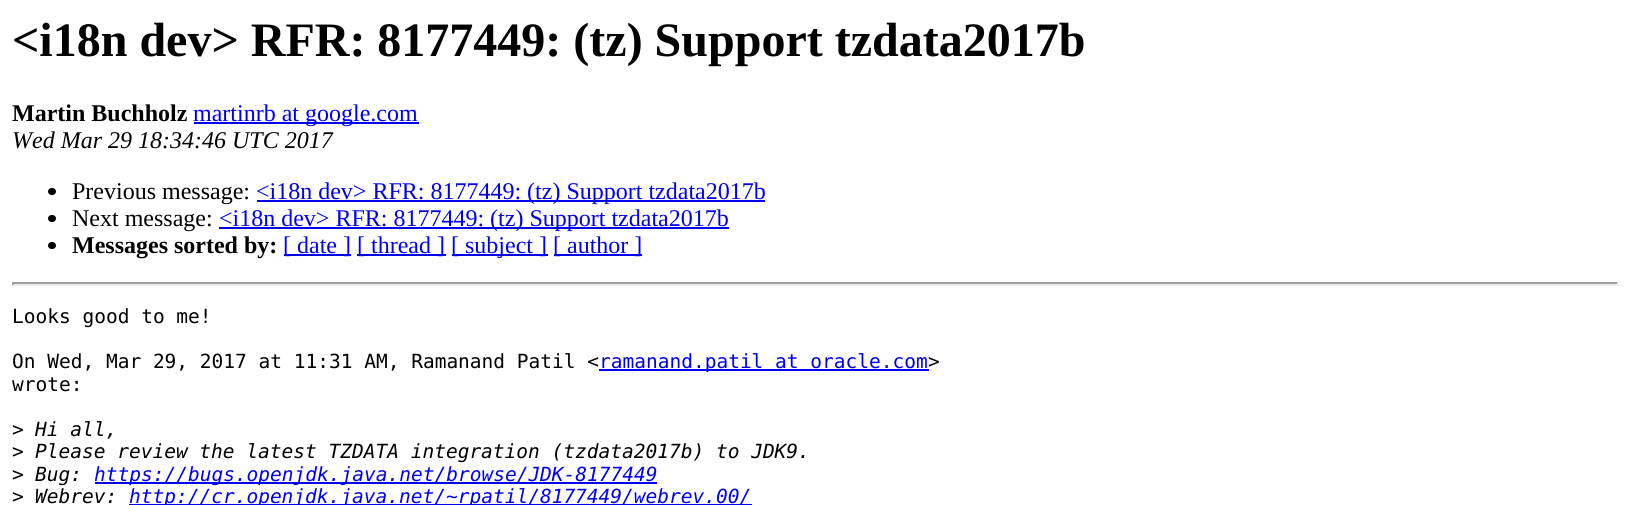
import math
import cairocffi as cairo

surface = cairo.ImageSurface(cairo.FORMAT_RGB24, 1630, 505)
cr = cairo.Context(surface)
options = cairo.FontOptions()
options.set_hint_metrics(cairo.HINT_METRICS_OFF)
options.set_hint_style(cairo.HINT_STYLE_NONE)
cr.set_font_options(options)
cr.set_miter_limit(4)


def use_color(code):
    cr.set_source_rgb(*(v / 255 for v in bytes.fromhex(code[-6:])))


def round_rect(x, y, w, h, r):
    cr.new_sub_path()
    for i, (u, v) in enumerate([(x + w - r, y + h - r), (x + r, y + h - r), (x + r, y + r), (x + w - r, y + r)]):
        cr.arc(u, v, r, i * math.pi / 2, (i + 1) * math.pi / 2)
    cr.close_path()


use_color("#ffffff")
cr.paint()
cr.select_font_face("Liberation Serif", cairo.FONT_SLANT_NORMAL, cairo.FONT_WEIGHT_BOLD)
cr.set_font_size(48)
use_color("#000000")
cr.move_to(12, 56)
cr.show_text("<i18n dev> RFR: 8177449: (tz) Support tzdata2017b")
cr.set_font_size(24)
cr.move_to(12, 121)
cr.show_text("Martin Buchholz")
use_color("#0000ee")
cr.rectangle(194, 122, 225, 2)
cr.fill()
cr.select_font_face("Liberation Serif")
cr.move_to(193, 121)
cr.show_text("martinrb at google.com")
cr.select_font_face("Liberation Serif", cairo.FONT_SLANT_ITALIC)
use_color("#000000")
cr.move_to(12, 148)
cr.show_text("Wed Mar 29 18:34:46 UTC 2017")
round_rect(48, 188, 8, 7, 3.5)
cr.fill()
cr.select_font_face("Liberation Serif")
cr.move_to(72, 199)
cr.show_text("Previous message:")
use_color("#0000ee")
cr.rectangle(257, 200, 508, 2)
cr.fill()
cr.move_to(256, 199)
cr.show_text("<i18n dev> RFR: 8177449: (tz) Support tzdata2017b")
use_color("#000000")
round_rect(48, 215, 8, 7, 3.5)
cr.fill()
cr.move_to(72, 226)
cr.show_text("Next message:")
use_color("#0000ee")
cr.rectangle(219, 227, 510, 2)
cr.fill()
cr.move_to(219, 226)
cr.show_text("<i18n dev> RFR: 8177449: (tz) Support tzdata2017b")
use_color("#000000")
round_rect(48, 242, 8, 7, 3.5)
cr.fill()
cr.select_font_face("Liberation Serif", cairo.FONT_SLANT_NORMAL, cairo.FONT_WEIGHT_BOLD)
cr.move_to(72, 253)
cr.show_text("Messages sorted by:")
use_color("#0000ee")
cr.rectangle(284, 254, 67, 2)
cr.fill()
cr.select_font_face("Liberation Serif")
cr.move_to(283, 253)
cr.show_text("[ date ]")
cr.rectangle(357, 254, 89, 2)
cr.fill()
cr.move_to(357, 253)
cr.show_text("[ thread ]")
cr.rectangle(452, 254, 96, 2)
cr.fill()
cr.move_to(451, 253)
cr.show_text("[ subject ]")
cr.rectangle(554, 254, 88, 2)
cr.fill()
cr.move_to(553, 253)
cr.show_text("[ author ]")
use_color("#9f9f9f")
cr.rectangle(12, 282, 1607, 2)
cr.fill()
use_color("#eeeeee")
cr.rectangle(1617, 282, 2, 3)
cr.fill()
cr.rectangle(12, 284, 1607, 2)
cr.fill()
use_color("#9f9f9f")
cr.rectangle(12, 282, 2, 3)
cr.fill()
cr.select_font_face("DejaVu Sans Mono")
cr.set_font_size(19.5)
use_color("#000000")
cr.move_to(12, 323)
cr.show_text("Looks good to me!")
cr.move_to(12, 368)
cr.show_text("On Wed, Mar 29, 2017 at 11:31 AM, Ramanand Patil <")
use_color("#0000ee")
cr.rectangle(599, 369, 330, 2)
cr.fill()
cr.move_to(599, 368)
cr.show_text("ramanand.patil at oracle.com")
use_color("#000000")
cr.move_to(928, 368)
cr.show_text(">")
cr.move_to(12, 391)
cr.show_text("wrote:")
cr.move_to(12, 436)
cr.show_text(">")
cr.select_font_face("DejaVu Sans Mono", cairo.FONT_SLANT_ITALIC)
cr.move_to(35, 436)
cr.show_text("Hi all,")
cr.select_font_face("DejaVu Sans Mono")
cr.move_to(12, 458)
cr.show_text(">")
cr.select_font_face("DejaVu Sans Mono", cairo.FONT_SLANT_ITALIC)
cr.move_to(35, 458)
cr.show_text("Please review the latest TZDATA integration (tzdata2017b) to JDK9.")
cr.select_font_face("DejaVu Sans Mono")
cr.move_to(12, 481)
cr.show_text(">")
cr.select_font_face("DejaVu Sans Mono", cairo.FONT_SLANT_ITALIC)
cr.move_to(35, 481)
cr.show_text("Bug:")
use_color("#0000ee")
cr.rectangle(95, 482, 562, 2)
cr.fill()
cr.move_to(94, 481)
cr.show_text("https://bugs.openjdk.java.net/browse/JDK-8177449")
cr.select_font_face("DejaVu Sans Mono")
use_color("#000000")
cr.move_to(12, 503)
cr.show_text(">")
cr.select_font_face("DejaVu Sans Mono", cairo.FONT_SLANT_ITALIC)
cr.move_to(35, 503)
cr.show_text("Webrev:")
use_color("#0000ee")
cr.rectangle(129, 504, 623, 1)
cr.fill()
cr.move_to(129, 503)
cr.show_text("http://cr.openjdk.java.net/~rpatil/8177449/webrev.00/")
surface.write_to_png("result.png")
